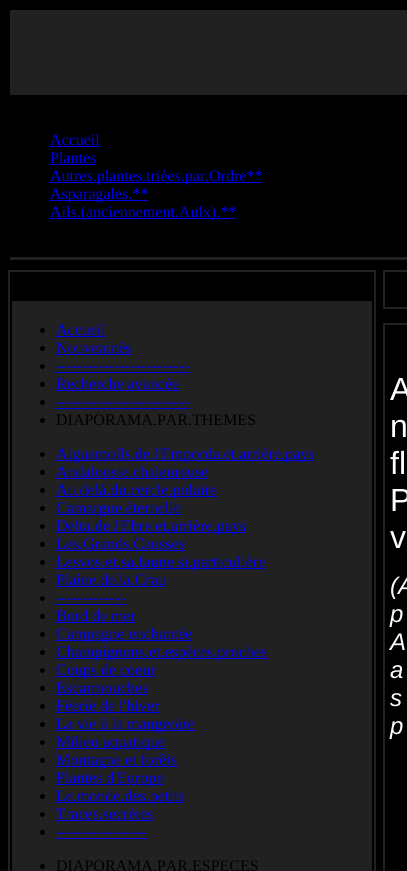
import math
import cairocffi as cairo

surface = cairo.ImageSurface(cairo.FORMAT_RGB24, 407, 871)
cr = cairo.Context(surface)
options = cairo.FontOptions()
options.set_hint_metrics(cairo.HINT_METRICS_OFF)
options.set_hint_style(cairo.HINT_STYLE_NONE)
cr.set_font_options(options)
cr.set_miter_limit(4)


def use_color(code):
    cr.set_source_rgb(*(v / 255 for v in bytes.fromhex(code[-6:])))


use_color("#000000")
cr.paint()
use_color("#212121")
cr.rectangle(10, 10, 397, 85)
cr.fill()
cr.select_font_face("Liberation Serif")
cr.set_font_size(16)
use_color("#0000ee")
cr.move_to(50, 145)
cr.show_text("Accueil")
cr.rectangle(50, 146, 50, 1)
cr.fill()
cr.move_to(50, 163)
cr.show_text("Plantes")
cr.rectangle(50, 164, 46, 1)
cr.fill()
cr.rectangle(50, 182, 212, 1)
cr.fill()
cr.move_to(50, 181)
cr.show_text("Autres.plantes.triées.par.Ordre**")
cr.rectangle(50, 200, 98, 1)
cr.fill()
cr.move_to(50, 199)
cr.show_text("Asparagales.**")
cr.rectangle(50, 218, 186, 1)
cr.fill()
cr.move_to(50, 217)
cr.show_text("Ails.(anciennement.Aulx).**")
use_color("#212121")
cr.rectangle(10, 257, 397, 3)
cr.fill()
cr.rectangle(8, 270, 368, 601)
cr.fill()
use_color("#000000")
cr.rectangle(10, 272, 364, 599)
cr.fill()
use_color("#212121")
cr.rectangle(12, 301, 360, 570)
cr.fill()
use_color("#000000")
cr.arc(42.5, 330.5, 2.5, 0, 2 * math.pi)
cr.fill()
use_color("#0000ee")
cr.move_to(56, 335)
cr.show_text("Accueil")
cr.rectangle(56, 336, 50, 1)
cr.fill()
use_color("#000000")
cr.arc(42.5, 348.5, 2.5, 0, 2 * math.pi)
cr.fill()
use_color("#0000ee")
cr.move_to(56, 353)
cr.show_text("Nouveautés")
cr.rectangle(56, 354, 76, 1)
cr.fill()
use_color("#000000")
cr.arc(42.5, 366.5, 2.5, 0, 2 * math.pi)
cr.fill()
use_color("#0000ee")
cr.move_to(56, 371)
cr.show_text("-------------------------")
cr.rectangle(56, 372, 133, 1)
cr.fill()
use_color("#000000")
cr.arc(42.5, 384.5, 2.5, 0, 2 * math.pi)
cr.fill()
use_color("#0000ee")
cr.move_to(56, 389)
cr.show_text("Recherche avancée")
cr.rectangle(56, 390, 123, 1)
cr.fill()
use_color("#000000")
cr.arc(42.5, 402.5, 2.5, 0, 2 * math.pi)
cr.fill()
use_color("#0000ee")
cr.move_to(56, 407)
cr.show_text("-------------------------")
cr.rectangle(56, 408, 133, 1)
cr.fill()
use_color("#000000")
cr.arc(42.5, 420.5, 2.5, 0, 2 * math.pi)
cr.fill()
cr.move_to(56, 425)
cr.show_text("DIAPORAMA.PAR.THEMES")
cr.new_path()
cr.arc(42.5, 454.5, 2.5, 0, 2 * math.pi)
cr.fill()
use_color("#0000ee")
cr.rectangle(56, 460, 258, 1)
cr.fill()
cr.move_to(56, 459)
cr.show_text("Aiguamolls.de.l'Emporda.et.arrière.pays")
use_color("#000000")
cr.new_path()
cr.arc(42.5, 472.5, 2.5, 0, 2 * math.pi)
cr.fill()
use_color("#0000ee")
cr.move_to(56, 477)
cr.show_text("Andalousie.chaleureuse")
cr.rectangle(56, 478, 152, 1)
cr.fill()
use_color("#000000")
cr.arc(42.5, 490.5, 2.5, 0, 2 * math.pi)
cr.fill()
use_color("#0000ee")
cr.rectangle(56, 496, 161, 1)
cr.fill()
cr.move_to(56, 495)
cr.show_text("Au.delà.du.cercle.polaire")
use_color("#000000")
cr.new_path()
cr.arc(42.5, 508.5, 2.5, 0, 2 * math.pi)
cr.fill()
use_color("#0000ee")
cr.rectangle(56, 514, 125, 1)
cr.fill()
cr.move_to(56, 513)
cr.show_text("Camargue.éternelle")
use_color("#000000")
cr.new_path()
cr.arc(42.5, 526.5, 2.5, 0, 2 * math.pi)
cr.fill()
use_color("#0000ee")
cr.rectangle(56, 532, 190, 1)
cr.fill()
cr.move_to(56, 531)
cr.show_text("Delta.de.l'Ebre.et.arrière.pays")
use_color("#000000")
cr.new_path()
cr.arc(42.5, 544.5, 2.5, 0, 2 * math.pi)
cr.fill()
use_color("#0000ee")
cr.move_to(56, 549)
cr.show_text("Les.Grands.Causses")
cr.rectangle(56, 550, 129, 1)
cr.fill()
use_color("#000000")
cr.arc(42.5, 562.5, 2.5, 0, 2 * math.pi)
cr.fill()
use_color("#0000ee")
cr.rectangle(56, 568, 209, 1)
cr.fill()
cr.move_to(56, 567)
cr.show_text("Lesvos.et.sa.faune.si.particulière")
use_color("#000000")
cr.new_path()
cr.arc(42.5, 580.5, 2.5, 0, 2 * math.pi)
cr.fill()
use_color("#0000ee")
cr.move_to(56, 585)
cr.show_text("Plaine.de.la.Crau")
cr.rectangle(56, 586, 110, 1)
cr.fill()
use_color("#000000")
cr.arc(42.5, 598.5, 2.5, 0, 2 * math.pi)
cr.fill()
use_color("#0000ee")
cr.move_to(56, 603)
cr.show_text("-------------")
cr.rectangle(56, 604, 69, 1)
cr.fill()
use_color("#000000")
cr.arc(42.5, 616.5, 2.5, 0, 2 * math.pi)
cr.fill()
use_color("#0000ee")
cr.move_to(56, 621)
cr.show_text("Bord de mer")
cr.rectangle(56, 622, 80, 1)
cr.fill()
use_color("#000000")
cr.arc(42.5, 634.5, 2.5, 0, 2 * math.pi)
cr.fill()
use_color("#0000ee")
cr.rectangle(56, 640, 136, 1)
cr.fill()
cr.move_to(56, 639)
cr.show_text("Campagne enchantée")
use_color("#000000")
cr.new_path()
cr.arc(42.5, 652.5, 2.5, 0, 2 * math.pi)
cr.fill()
use_color("#0000ee")
cr.rectangle(56, 658, 211, 1)
cr.fill()
cr.move_to(56, 657)
cr.show_text("Champignons.et.espèces.proches")
use_color("#000000")
cr.new_path()
cr.arc(42.5, 670.5, 2.5, 0, 2 * math.pi)
cr.fill()
use_color("#0000ee")
cr.rectangle(56, 676, 100, 1)
cr.fill()
cr.move_to(56, 675)
cr.show_text("Coups de coeur")
use_color("#000000")
cr.new_path()
cr.arc(42.5, 688.5, 2.5, 0, 2 * math.pi)
cr.fill()
use_color("#0000ee")
cr.move_to(56, 693)
cr.show_text("Escarmouches")
cr.rectangle(56, 694, 92, 1)
cr.fill()
use_color("#000000")
cr.arc(42.5, 706.5, 2.5, 0, 2 * math.pi)
cr.fill()
use_color("#0000ee")
cr.move_to(56, 711)
cr.show_text("Féerie de l'hiver")
cr.rectangle(56, 712, 103, 1)
cr.fill()
use_color("#000000")
cr.arc(42.5, 724.5, 2.5, 0, 2 * math.pi)
cr.fill()
use_color("#0000ee")
cr.rectangle(56, 730, 139, 1)
cr.fill()
cr.move_to(56, 729)
cr.show_text("La vie à la mangeoire")
use_color("#000000")
cr.new_path()
cr.arc(42.5, 742.5, 2.5, 0, 2 * math.pi)
cr.fill()
use_color("#0000ee")
cr.rectangle(56, 748, 109, 1)
cr.fill()
cr.move_to(56, 747)
cr.show_text("Milieu aquatique")
use_color("#000000")
cr.new_path()
cr.arc(42.5, 760.5, 2.5, 0, 2 * math.pi)
cr.fill()
use_color("#0000ee")
cr.rectangle(56, 766, 121, 1)
cr.fill()
cr.move_to(56, 765)
cr.show_text("Montagne et forêts")
use_color("#000000")
cr.new_path()
cr.arc(42.5, 778.5, 2.5, 0, 2 * math.pi)
cr.fill()
use_color("#0000ee")
cr.rectangle(56, 784, 107, 1)
cr.fill()
cr.move_to(56, 783)
cr.show_text("Plantes d'Europe")
use_color("#000000")
cr.new_path()
cr.arc(42.5, 796.5, 2.5, 0, 2 * math.pi)
cr.fill()
use_color("#0000ee")
cr.rectangle(56, 802, 128, 1)
cr.fill()
cr.move_to(56, 801)
cr.show_text("Le.monde.des.petits")
use_color("#000000")
cr.new_path()
cr.arc(42.5, 814.5, 2.5, 0, 2 * math.pi)
cr.fill()
use_color("#0000ee")
cr.move_to(56, 819)
cr.show_text("Traces.secrètes")
cr.rectangle(56, 820, 97, 1)
cr.fill()
use_color("#000000")
cr.arc(42.5, 832.5, 2.5, 0, 2 * math.pi)
cr.fill()
use_color("#0000ee")
cr.move_to(56, 837)
cr.show_text("-----------------")
cr.rectangle(56, 838, 91, 1)
cr.fill()
use_color("#000000")
cr.arc(42.5, 866.5, 2.5, 0, 2 * math.pi)
cr.fill()
cr.move_to(56, 871)
cr.show_text("DIAPORAMA.PAR.ESPECES")
use_color("#212121")
cr.rectangle(383, 270, 24, 601)
cr.fill()
use_color("#000000")
cr.rectangle(385, 272, 22, 35)
cr.fill()
cr.rectangle(383, 309, 24, 14)
cr.fill()
cr.rectangle(385, 325, 22, 546)
cr.fill()
cr.select_font_face("Liberation Sans")
cr.set_font_size(32)
use_color("#ffffff")
cr.move_to(390, 400)
cr.show_text("A")
cr.move_to(390, 437)
cr.show_text("n")
cr.move_to(390, 474)
cr.show_text("fl")
cr.move_to(390, 511)
cr.show_text("P")
cr.move_to(390, 548)
cr.show_text("v")
cr.select_font_face("Liberation Sans", cairo.FONT_SLANT_ITALIC)
cr.set_font_size(24)
cr.move_to(390, 594)
cr.show_text("(A")
cr.move_to(390, 622)
cr.show_text("p")
cr.move_to(390, 650)
cr.show_text("A")
cr.move_to(390, 678)
cr.show_text("a")
cr.move_to(390, 706)
cr.show_text("s")
cr.move_to(390, 734)
cr.show_text("p")
surface.write_to_png("result.png")
